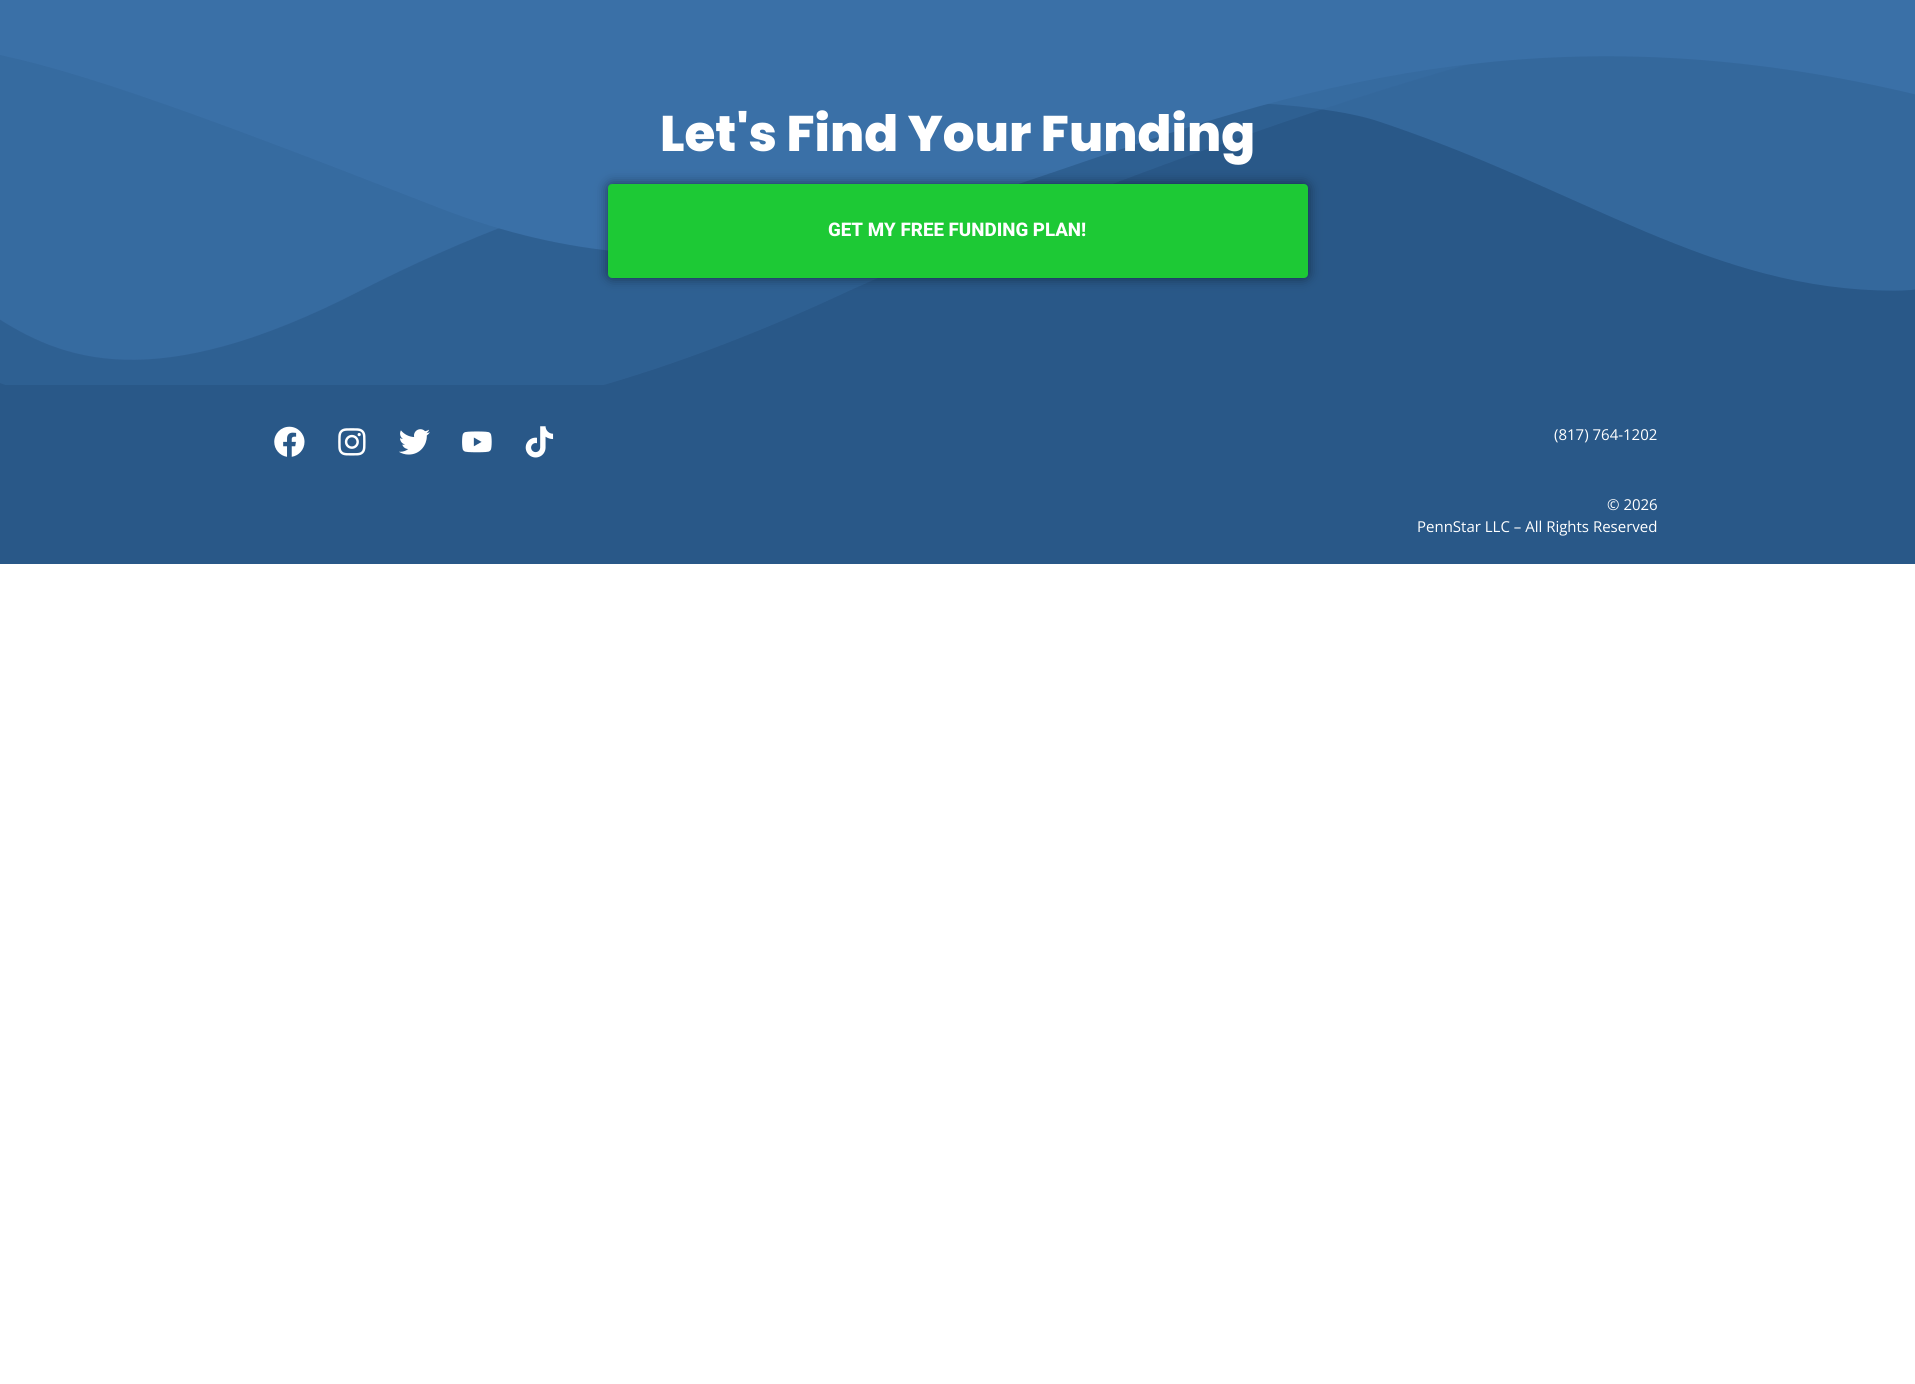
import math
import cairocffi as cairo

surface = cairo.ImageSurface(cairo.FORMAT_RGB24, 1915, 1384)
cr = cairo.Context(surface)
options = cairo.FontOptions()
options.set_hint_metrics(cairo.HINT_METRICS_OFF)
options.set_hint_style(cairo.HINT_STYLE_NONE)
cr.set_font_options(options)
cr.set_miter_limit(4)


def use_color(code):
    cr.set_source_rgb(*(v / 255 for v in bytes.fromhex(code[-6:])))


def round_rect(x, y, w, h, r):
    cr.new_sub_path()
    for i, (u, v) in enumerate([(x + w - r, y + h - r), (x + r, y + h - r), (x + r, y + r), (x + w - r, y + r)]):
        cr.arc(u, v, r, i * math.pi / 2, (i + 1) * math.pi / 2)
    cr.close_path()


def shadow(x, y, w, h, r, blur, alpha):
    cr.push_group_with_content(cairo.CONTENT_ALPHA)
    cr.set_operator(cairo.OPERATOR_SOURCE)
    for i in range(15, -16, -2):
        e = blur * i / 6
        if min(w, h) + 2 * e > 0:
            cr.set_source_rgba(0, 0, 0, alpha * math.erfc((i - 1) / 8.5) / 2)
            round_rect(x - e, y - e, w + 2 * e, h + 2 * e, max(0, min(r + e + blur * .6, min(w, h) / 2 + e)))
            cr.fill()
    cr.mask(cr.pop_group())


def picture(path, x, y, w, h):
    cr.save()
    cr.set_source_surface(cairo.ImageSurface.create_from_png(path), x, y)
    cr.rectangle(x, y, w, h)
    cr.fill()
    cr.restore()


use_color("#ffffff")
cr.paint()
use_color("#295888")
cr.rectangle(0, 55, 1915, 509)
cr.fill()
picture("img1.png", 0, 0, 1915, 385)
cr.select_font_face("Poppins ExtraBold")
cr.set_font_size(50)
use_color("#ffffff")
cr.move_to(660, 151)
cr.show_text("Let's Find Your Funding")
use_color("#000000")
shadow(608, 184, 700, 94, 4, 6, 0.5)
use_color("#1dc935")
round_rect(609.5, 185.5, 697, 91, 2.5)
cr.fill_preserve()
cr.set_line_width(3)
cr.stroke()
cr.select_font_face("Roboto ExtraBold")
cr.set_font_size(18.75)
use_color("#ffffff")
cr.move_to(828, 236)
cr.show_text("GET MY FREE FUNDING PLAN!")
picture("img2.png", 274, 426, 31, 31)
picture("img3.png", 338, 428, 28, 28)
picture("img4.png", 399, 429, 31, 26)
picture("img5.png", 462, 431, 30, 22)
picture("img6.png", 525, 426, 29, 32)
cr.select_font_face("Open Sans")
cr.set_font_size(15)
cr.move_to(1554, 440)
cr.show_text("(817) 764-1202")
cr.move_to(1607, 510)
cr.show_text("© 2026")
cr.move_to(1417, 532)
cr.show_text("PennStar LLC – All Rights Reserved")
surface.write_to_png("result.png")
